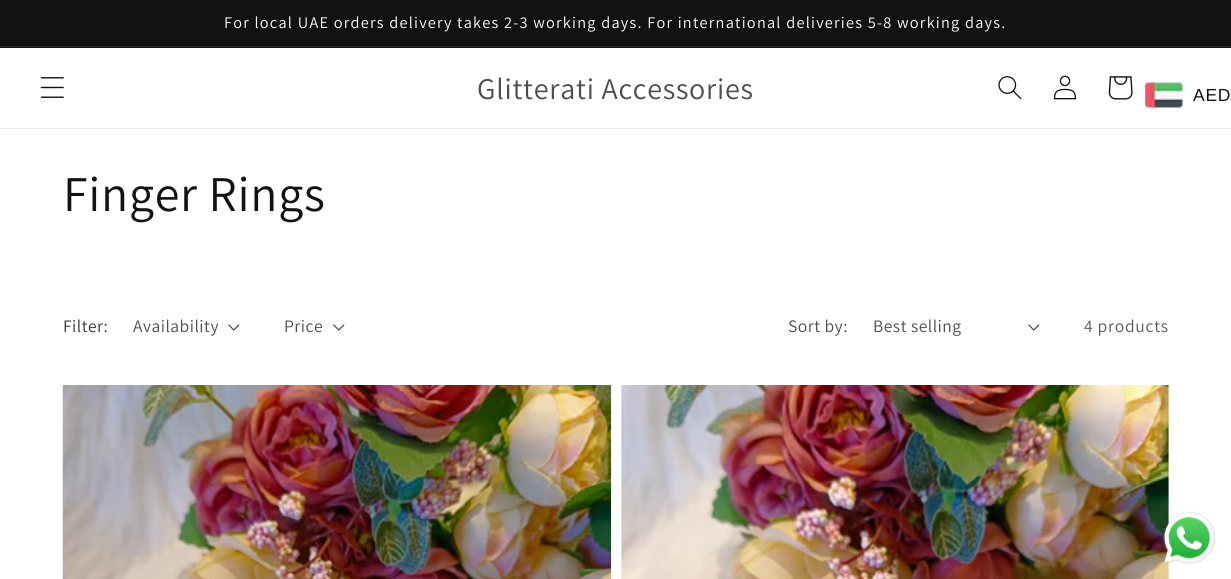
import math
import cairocffi as cairo

surface = cairo.ImageSurface(cairo.FORMAT_RGB24, 1231, 579)
cr = cairo.Context(surface)
options = cairo.FontOptions()
options.set_hint_metrics(cairo.HINT_METRICS_OFF)
options.set_hint_style(cairo.HINT_STYLE_NONE)
cr.set_font_options(options)
cr.set_miter_limit(4)


def use_color(code):
    cr.set_source_rgb(*(v / 255 for v in bytes.fromhex(code[-6:])))


def spaced_text(x, y, s, letter, word):
    cr.move_to(x, y)
    for ch in s:
        cr.show_text(ch)
        cr.rel_move_to(letter + word * (ch == ' '), 0)


def picture(path, x, y, w, h):
    cr.save()
    cr.set_source_surface(cairo.ImageSurface.create_from_png(path), x, y)
    cr.rectangle(x, y, w, h)
    cr.fill()
    cr.restore()


use_color("#ffffff")
cr.paint()
use_color("#121212")
cr.rectangle(0, 0, 1231, 48)
cr.fill()
use_color("#252525")
cr.rectangle(0, 46, 1231, 1)
cr.fill()
cr.select_font_face("Assistant")
cr.set_font_size(16.25)
use_color("#ffffff")
spaced_text(224, 28, "For local UAE orders delivery takes 2-3 working days. For international deliveries 5-8 working days.", 1.25, 0)
use_color("#ececec")
cr.rectangle(0, 128, 1231, 1)
cr.fill()
picture("img1.png", 40, 77, 24, 21)
cr.set_font_size(30)
use_color("#4d4d4d")
spaced_text(477, 99, "Glitterati Accessories", 0.75, 0)
picture("img2.png", 998, 76, 24, 24)
picture("img3.png", 1053, 75, 24, 25)
picture("img4.png", 1108, 76, 25, 24)
picture("img5.png", 1144, 82, 39, 26)
cr.select_font_face("Liberation Sans")
cr.set_font_size(17.5)
use_color("#121212")
spaced_text(1193, 101, "AED", 0.75, 0)
cr.select_font_face("Assistant")
cr.set_font_size(50)
spaced_text(63, 211, "Finger Rings", 0.75, 0)
cr.set_font_size(17.5)
use_color("#363636")
spaced_text(63, 332, "Filter:", 0.5, 0)
use_color("#4d4d4d")
spaced_text(133, 332, "Availability", 0.5, 0)
picture("img6.png", 228, 324, 12, 7)
spaced_text(284, 332, "Price", 0.5, 0)
picture("img6.png", 333, 324, 12, 7)
spaced_text(788, 332, "Sort by:", 0.5, 0)
spaced_text(873, 332, "Best selling", 0.5, 0)
picture("img6.png", 1028, 324, 12, 7)
use_color("#595959")
spaced_text(1084, 332, "4 products", 0.75, 0)
picture("img7.png", 62, 385, 550, 194)
use_color("#f3f3f3")
cr.rectangle(621, 385, 548, 194)
cr.fill()
picture("img8.png", 621, 385, 548, 194)
picture("img9.png", 1163, 511, 53, 54)
surface.write_to_png("result.png")
